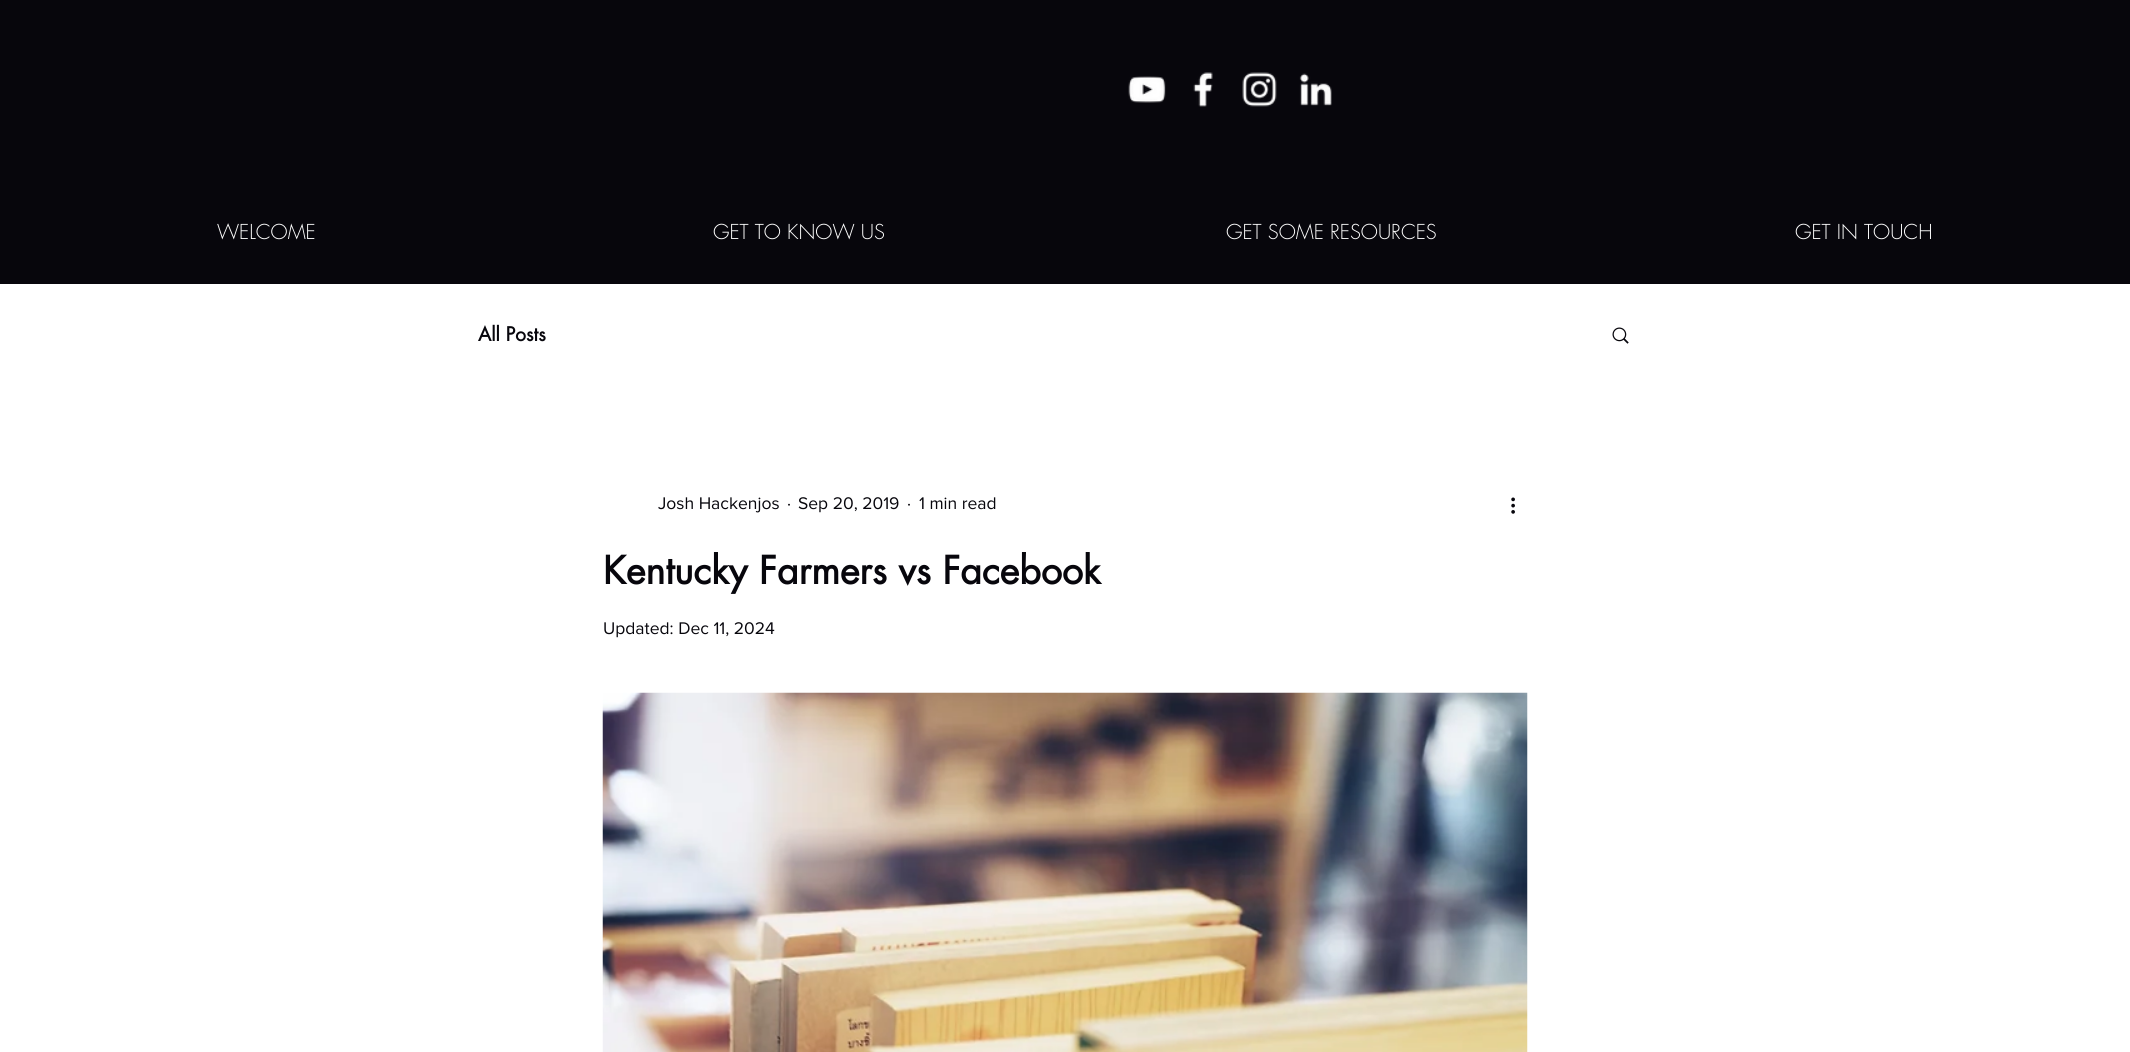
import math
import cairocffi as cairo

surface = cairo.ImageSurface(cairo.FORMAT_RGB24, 2130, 1052)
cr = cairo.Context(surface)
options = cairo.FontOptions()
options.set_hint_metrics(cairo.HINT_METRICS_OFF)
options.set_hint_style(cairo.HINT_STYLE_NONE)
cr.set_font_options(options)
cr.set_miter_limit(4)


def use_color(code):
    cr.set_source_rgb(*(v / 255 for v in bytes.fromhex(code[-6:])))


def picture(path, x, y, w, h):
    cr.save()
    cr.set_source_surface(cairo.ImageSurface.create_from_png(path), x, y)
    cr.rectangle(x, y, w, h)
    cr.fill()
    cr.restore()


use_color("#ffffff")
cr.paint()
use_color("#07060c")
cr.rectangle(0, 0, 2130, 284)
cr.fill()
picture("img1.png", 1128, 76, 38, 27)
picture("img2.png", 1193, 72, 20, 35)
picture("img3.png", 1242, 72, 35, 35)
picture("img4.png", 1299, 73, 33, 33)
cr.select_font_face("futura Light")
cr.set_font_size(20)
use_color("#ffffff")
cr.move_to(217, 239)
cr.show_text("WELCOME")
cr.move_to(713, 239)
cr.show_text("GET TO KNOW US")
cr.move_to(1226, 239)
cr.show_text("GET SOME RESOURCES")
cr.move_to(1795, 239)
cr.show_text("GET IN TOUCH")
cr.select_font_face("futura", cairo.FONT_SLANT_NORMAL, cairo.FONT_WEIGHT_BOLD)
cr.set_font_size(19)
use_color("#07060c")
cr.move_to(478, 341)
cr.show_text("All Posts")
picture("img5.png", 1612, 327, 17, 17)
cr.select_font_face("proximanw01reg")
cr.set_font_size(17.5)
cr.move_to(658, 509)
cr.show_text("Josh Hackenjos")
cr.move_to(787, 509)
cr.show_text("·")
cr.move_to(798, 509)
cr.show_text("Sep 20, 2019")
cr.move_to(907, 509)
cr.show_text("·")
cr.move_to(919, 509)
cr.show_text("1 min read")
picture("img6.png", 1511, 497, 4, 17)
cr.select_font_face("futura", cairo.FONT_SLANT_NORMAL, cairo.FONT_WEIGHT_BOLD)
cr.set_font_size(37.5)
cr.move_to(603, 584)
cr.show_text("Kentucky Farmers vs Facebook")
cr.select_font_face("proximanw01reg")
cr.set_font_size(17.5)
cr.move_to(603, 634)
cr.show_text("Updated: Dec 11, 2024")
picture("img7.png", 602, 692, 926, 360)
surface.write_to_png("result.png")
